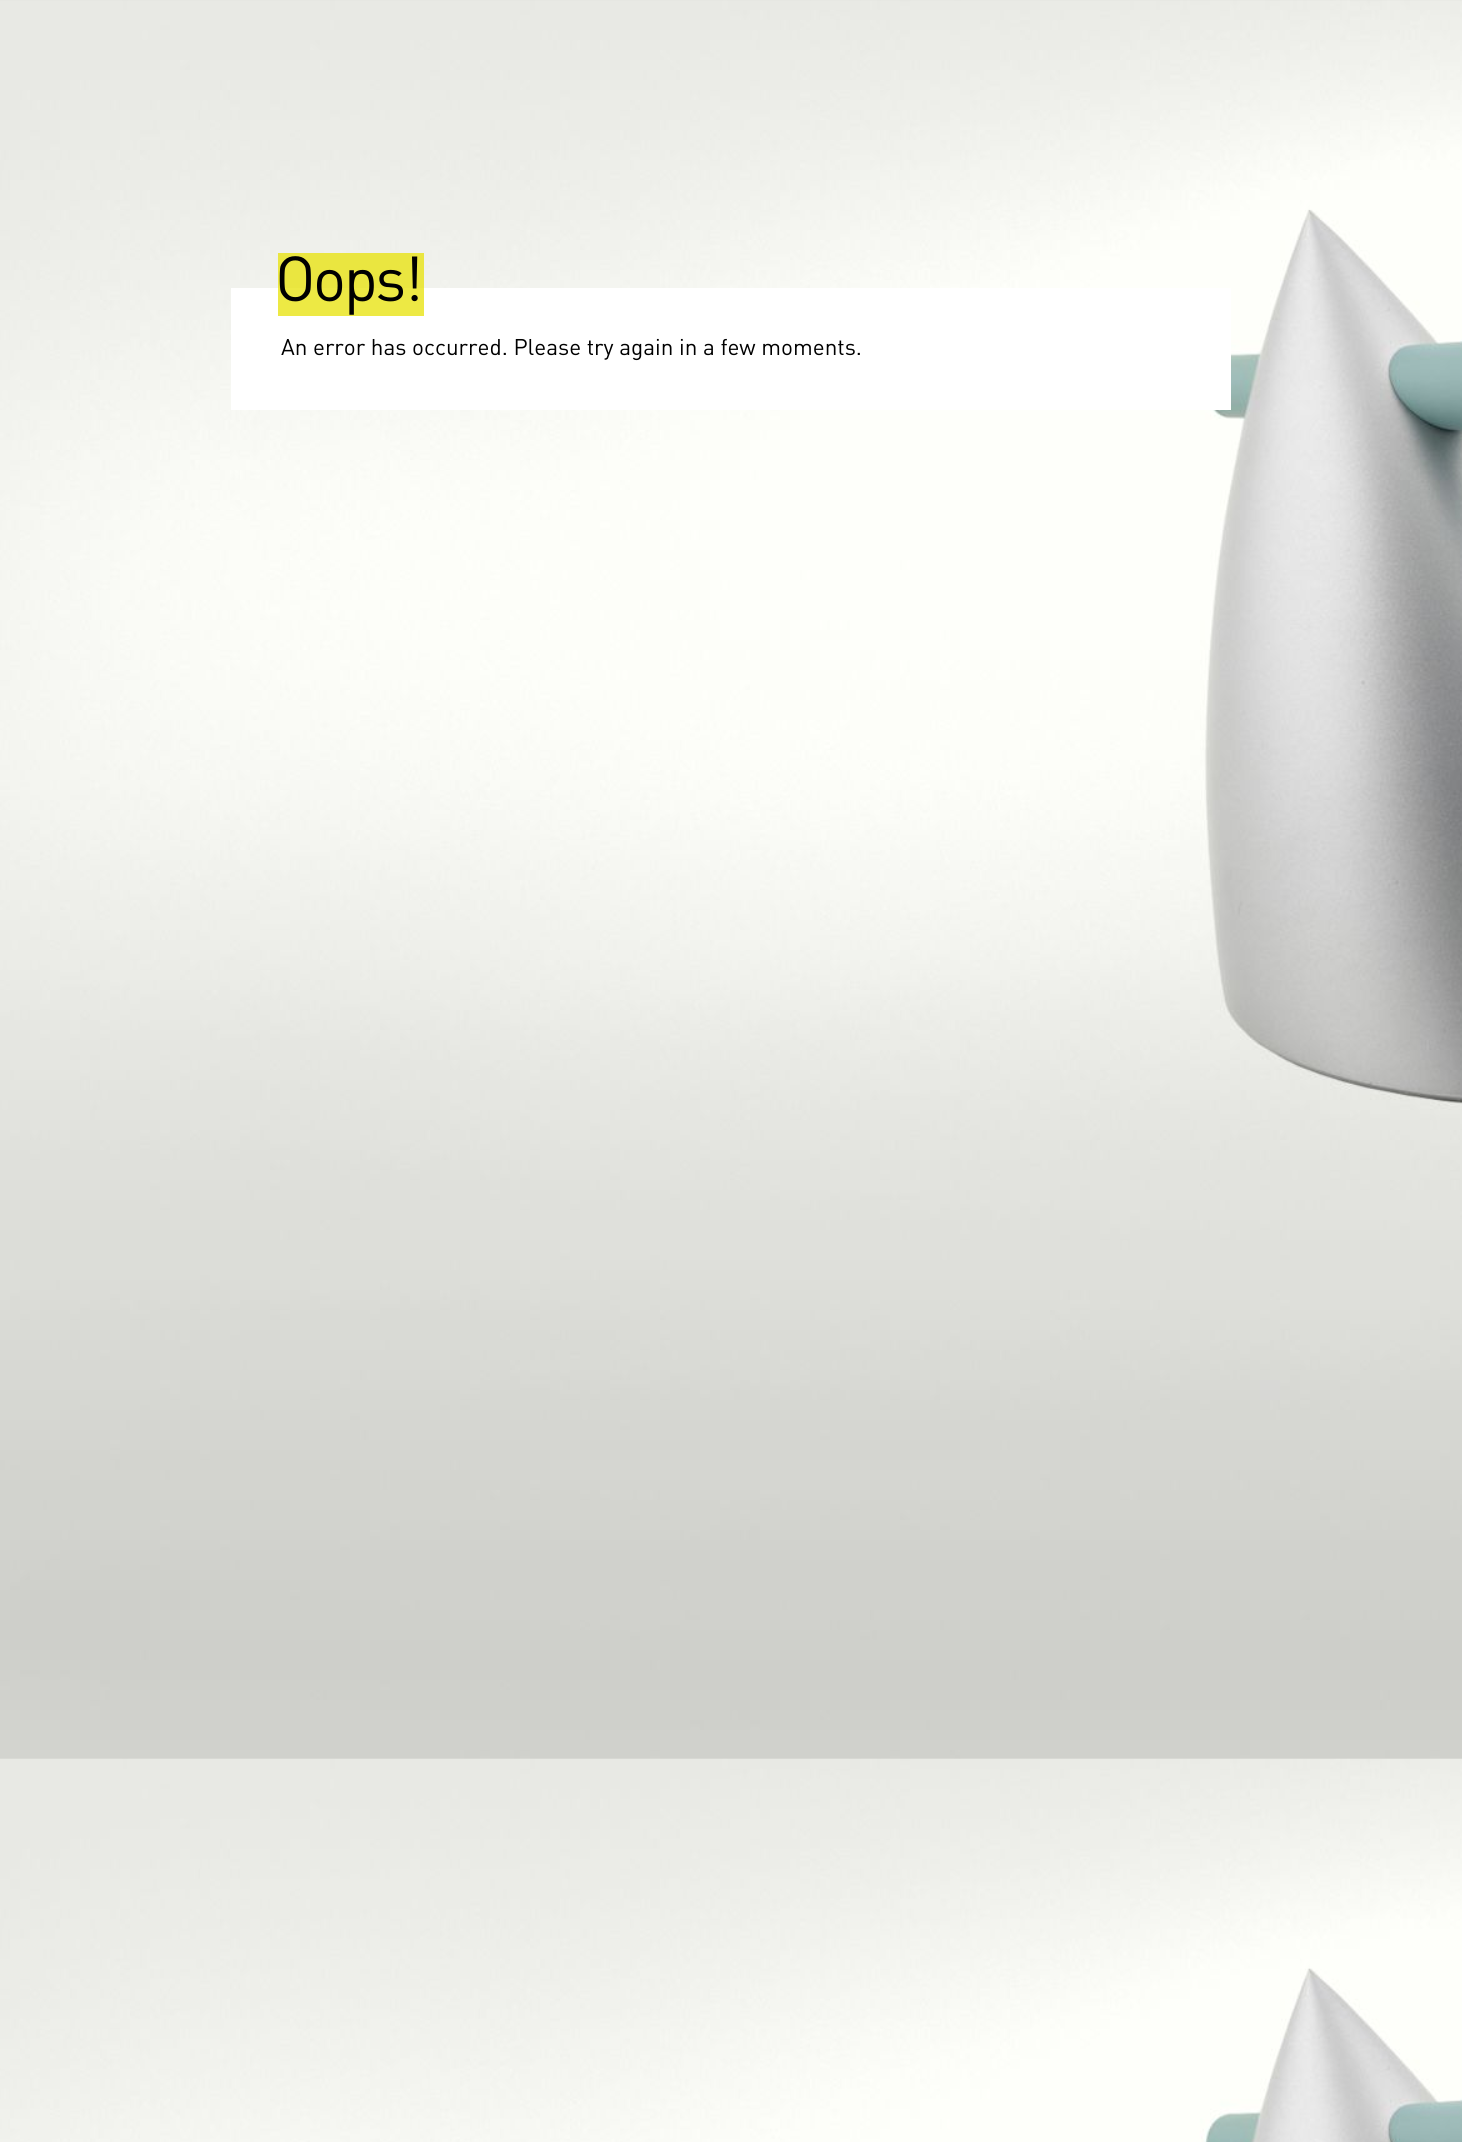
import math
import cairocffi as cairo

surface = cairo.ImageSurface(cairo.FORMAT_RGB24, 1462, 2142)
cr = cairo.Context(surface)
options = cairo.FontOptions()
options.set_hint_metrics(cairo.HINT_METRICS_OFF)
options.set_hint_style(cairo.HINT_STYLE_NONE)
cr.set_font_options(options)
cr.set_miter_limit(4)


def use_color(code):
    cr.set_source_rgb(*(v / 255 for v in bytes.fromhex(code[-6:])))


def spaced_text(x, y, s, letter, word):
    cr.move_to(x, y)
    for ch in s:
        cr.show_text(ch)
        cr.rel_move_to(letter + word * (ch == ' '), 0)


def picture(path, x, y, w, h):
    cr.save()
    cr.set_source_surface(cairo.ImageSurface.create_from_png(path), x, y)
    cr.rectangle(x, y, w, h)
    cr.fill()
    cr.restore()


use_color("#ffffff")
cr.paint()
picture("img1.png", 0, 0, 1462, 2142)
use_color("#ffffff")
cr.rectangle(231, 288, 1000, 122)
cr.fill()
cr.set_source_rgba(0.91, 0.89, 0.086, 0.8)
cr.rectangle(278, 253, 146, 63)
cr.fill()
cr.select_font_face("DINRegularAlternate")
cr.set_font_size(62.5)
use_color("#000000")
spaced_text(275, 301, "Oops!", -2.5, 0)
cr.select_font_face("DIN")
cr.set_font_size(22.5)
cr.move_to(281, 355)
cr.show_text("An error has occurred. Please try again in a few moments.")
surface.write_to_png("result.png")
